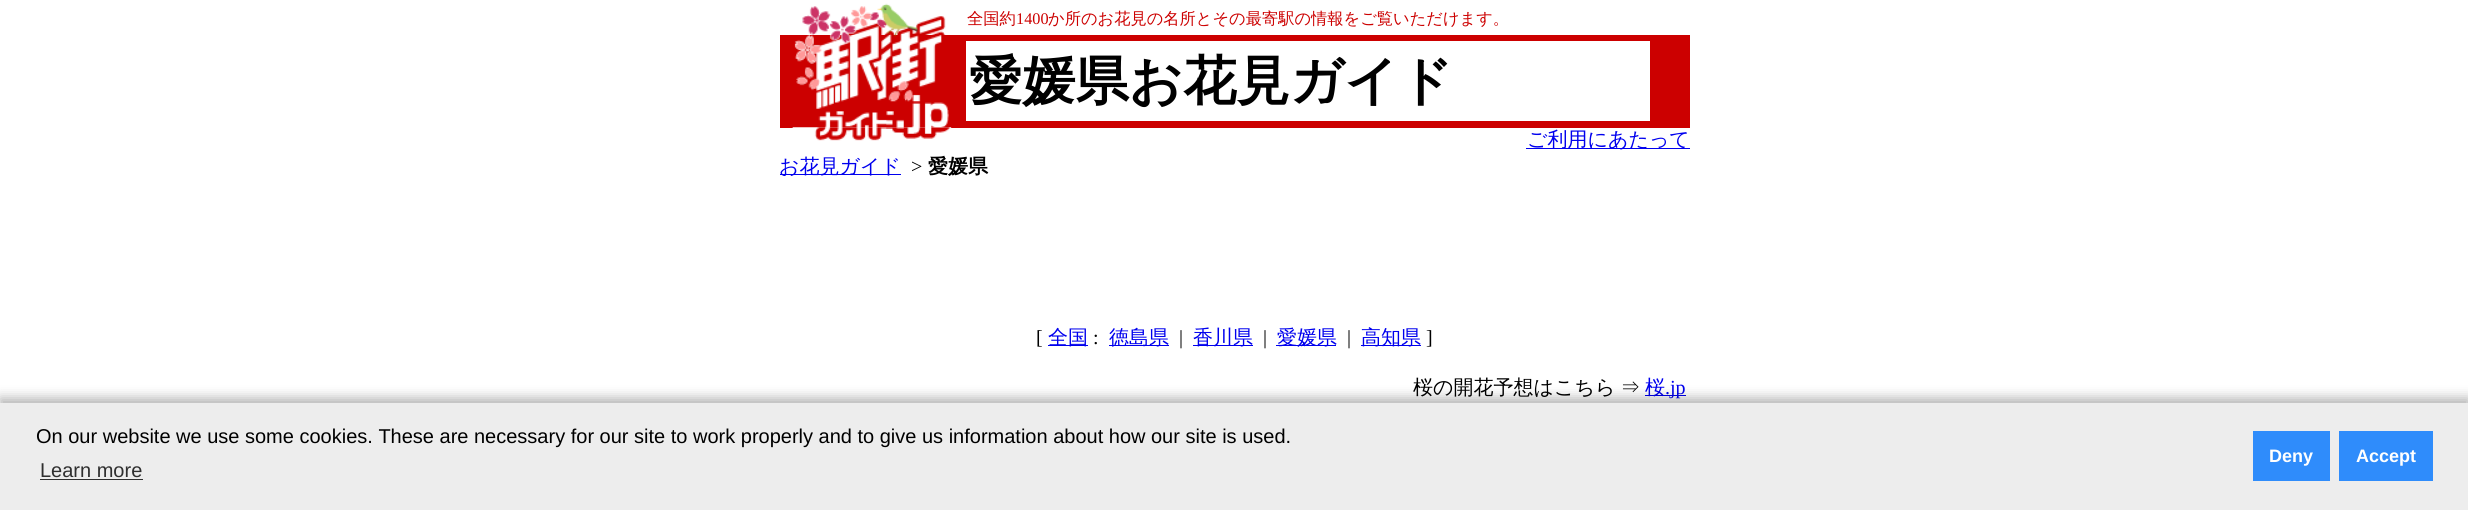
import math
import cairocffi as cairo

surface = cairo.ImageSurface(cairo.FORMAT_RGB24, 2468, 510)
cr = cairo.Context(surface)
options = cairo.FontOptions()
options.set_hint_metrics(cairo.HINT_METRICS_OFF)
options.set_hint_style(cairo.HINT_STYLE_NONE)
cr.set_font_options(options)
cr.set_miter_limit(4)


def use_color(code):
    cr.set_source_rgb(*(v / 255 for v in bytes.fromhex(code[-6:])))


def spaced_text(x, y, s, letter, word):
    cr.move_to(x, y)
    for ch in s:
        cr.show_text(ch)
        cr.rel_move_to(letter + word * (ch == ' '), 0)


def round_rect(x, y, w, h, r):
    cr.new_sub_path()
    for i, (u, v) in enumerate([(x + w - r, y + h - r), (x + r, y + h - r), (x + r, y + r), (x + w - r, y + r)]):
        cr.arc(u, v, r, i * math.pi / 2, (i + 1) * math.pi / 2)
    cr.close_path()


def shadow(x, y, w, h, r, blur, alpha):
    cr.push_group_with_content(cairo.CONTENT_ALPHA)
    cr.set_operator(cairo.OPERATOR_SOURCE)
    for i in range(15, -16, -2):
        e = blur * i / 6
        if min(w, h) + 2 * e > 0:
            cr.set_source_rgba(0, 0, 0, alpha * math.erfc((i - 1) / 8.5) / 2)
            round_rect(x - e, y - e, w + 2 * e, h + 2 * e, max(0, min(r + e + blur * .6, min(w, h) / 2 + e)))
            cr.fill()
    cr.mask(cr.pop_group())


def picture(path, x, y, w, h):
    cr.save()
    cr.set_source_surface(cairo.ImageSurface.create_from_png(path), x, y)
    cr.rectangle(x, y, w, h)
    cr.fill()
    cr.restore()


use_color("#ffffff")
cr.paint()
picture("img1.png", 802, 3, 144, 32)
cr.select_font_face("WenQuanYi Zen Hei Medium")
cr.set_font_size(16.25)
use_color("#cc0000")
cr.move_to(967, 24)
cr.show_text("全国約")
cr.select_font_face("Liberation Serif")
cr.move_to(1016, 24)
cr.show_text("1400")
cr.select_font_face("WenQuanYi Zen Hei Medium")
cr.move_to(1048, 24)
cr.show_text("か所のお花見の名所とその最寄駅の情報をご覧いただけます。")
cr.rectangle(780, 35, 13, 93)
cr.fill()
picture("img2.png", 793, 35, 158, 93)
cr.rectangle(951, 35, 739, 93)
cr.fill()
use_color("#ffffff")
cr.rectangle(966, 41, 684, 80)
cr.fill()
cr.select_font_face("WenQuanYi Zen Hei", cairo.FONT_SLANT_NORMAL, cairo.FONT_WEIGHT_BOLD)
cr.set_font_size(53.25)
use_color("#000000")
cr.move_to(969, 99)
cr.show_text("愛媛県お花見ガイド")
picture("img3.png", 792, 127, 160, 14)
use_color("#0000ee")
cr.rectangle(1526, 148, 164, 1)
cr.fill()
cr.select_font_face("WenQuanYi Zen Hei Medium")
cr.set_font_size(20)
cr.move_to(1527, 146)
cr.show_text("ご利用にあたって")
cr.rectangle(780, 174, 121, 1)
cr.fill()
cr.move_to(779, 173)
cr.show_text("お花見ガイド")
cr.select_font_face("Liberation Serif")
use_color("#000000")
cr.move_to(911, 173)
cr.show_text(">")
cr.select_font_face("WenQuanYi Zen Hei", cairo.FONT_SLANT_NORMAL, cairo.FONT_WEIGHT_BOLD)
cr.move_to(928, 173)
cr.show_text("愛媛県")
cr.select_font_face("Liberation Serif")
cr.move_to(1036, 344)
cr.show_text("[")
use_color("#0000ee")
cr.rectangle(1048, 345, 40, 1)
cr.fill()
cr.select_font_face("WenQuanYi Zen Hei Medium")
cr.move_to(1048, 344)
cr.show_text("全国")
cr.select_font_face("Liberation Serif")
use_color("#000000")
cr.move_to(1093, 344)
cr.show_text(":")
use_color("#0000ee")
cr.rectangle(1109, 345, 60, 1)
cr.fill()
cr.select_font_face("WenQuanYi Zen Hei Medium")
cr.move_to(1109, 344)
cr.show_text("徳島県")
cr.select_font_face("Liberation Serif")
use_color("#000000")
cr.move_to(1179, 344)
cr.show_text("|")
use_color("#0000ee")
cr.rectangle(1193, 345, 60, 1)
cr.fill()
cr.select_font_face("WenQuanYi Zen Hei Medium")
cr.move_to(1193, 344)
cr.show_text("香川県")
cr.select_font_face("Liberation Serif")
use_color("#000000")
cr.move_to(1263, 344)
cr.show_text("|")
use_color("#0000ee")
cr.rectangle(1276, 345, 60, 1)
cr.fill()
cr.select_font_face("WenQuanYi Zen Hei Medium")
cr.move_to(1277, 344)
cr.show_text("愛媛県")
cr.select_font_face("Liberation Serif")
use_color("#000000")
cr.move_to(1347, 344)
cr.show_text("|")
use_color("#0000ee")
cr.rectangle(1361, 345, 60, 1)
cr.fill()
cr.select_font_face("WenQuanYi Zen Hei Medium")
cr.move_to(1361, 344)
cr.show_text("高知県")
cr.select_font_face("Liberation Serif")
use_color("#000000")
cr.move_to(1426, 344)
cr.show_text("]")
cr.select_font_face("WenQuanYi Zen Hei Medium")
spaced_text(1413, 394, "桜の開花予想はこちら ⇒", 0, -1)
use_color("#0000ee")
cr.rectangle(1645, 395, 41, 1)
cr.fill()
cr.move_to(1645, 394)
cr.show_text("桜")
cr.select_font_face("Liberation Serif")
cr.move_to(1665, 394)
cr.show_text(".jp")
use_color("#000000")
shadow(0, 398, 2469, 107, 0, 6, 0.3)
use_color("#ededed")
cr.rectangle(0, 403, 2468, 107)
cr.fill()
cr.select_font_face("Liberation Sans")
use_color("#000000")
cr.move_to(36, 443)
cr.show_text("On our website we use some cookies. These are necessary for our site to work properly and to give us information about how our site is used.")
use_color("#2f2f2f")
cr.move_to(40, 477)
cr.show_text("Learn more")
cr.rectangle(40, 479, 103, 1)
cr.fill()
use_color("#2f8cfb")
cr.rectangle(2253, 431, 77, 50)
cr.fill()
cr.select_font_face("Liberation Sans", cairo.FONT_SLANT_NORMAL, cairo.FONT_WEIGHT_BOLD)
cr.set_font_size(18)
use_color("#ffffff")
cr.move_to(2269, 462)
cr.show_text("Deny")
use_color("#2f8cfb")
cr.rectangle(2339, 431, 94, 50)
cr.fill()
use_color("#ffffff")
cr.move_to(2356, 462)
cr.show_text("Accept")
surface.write_to_png("result.png")
